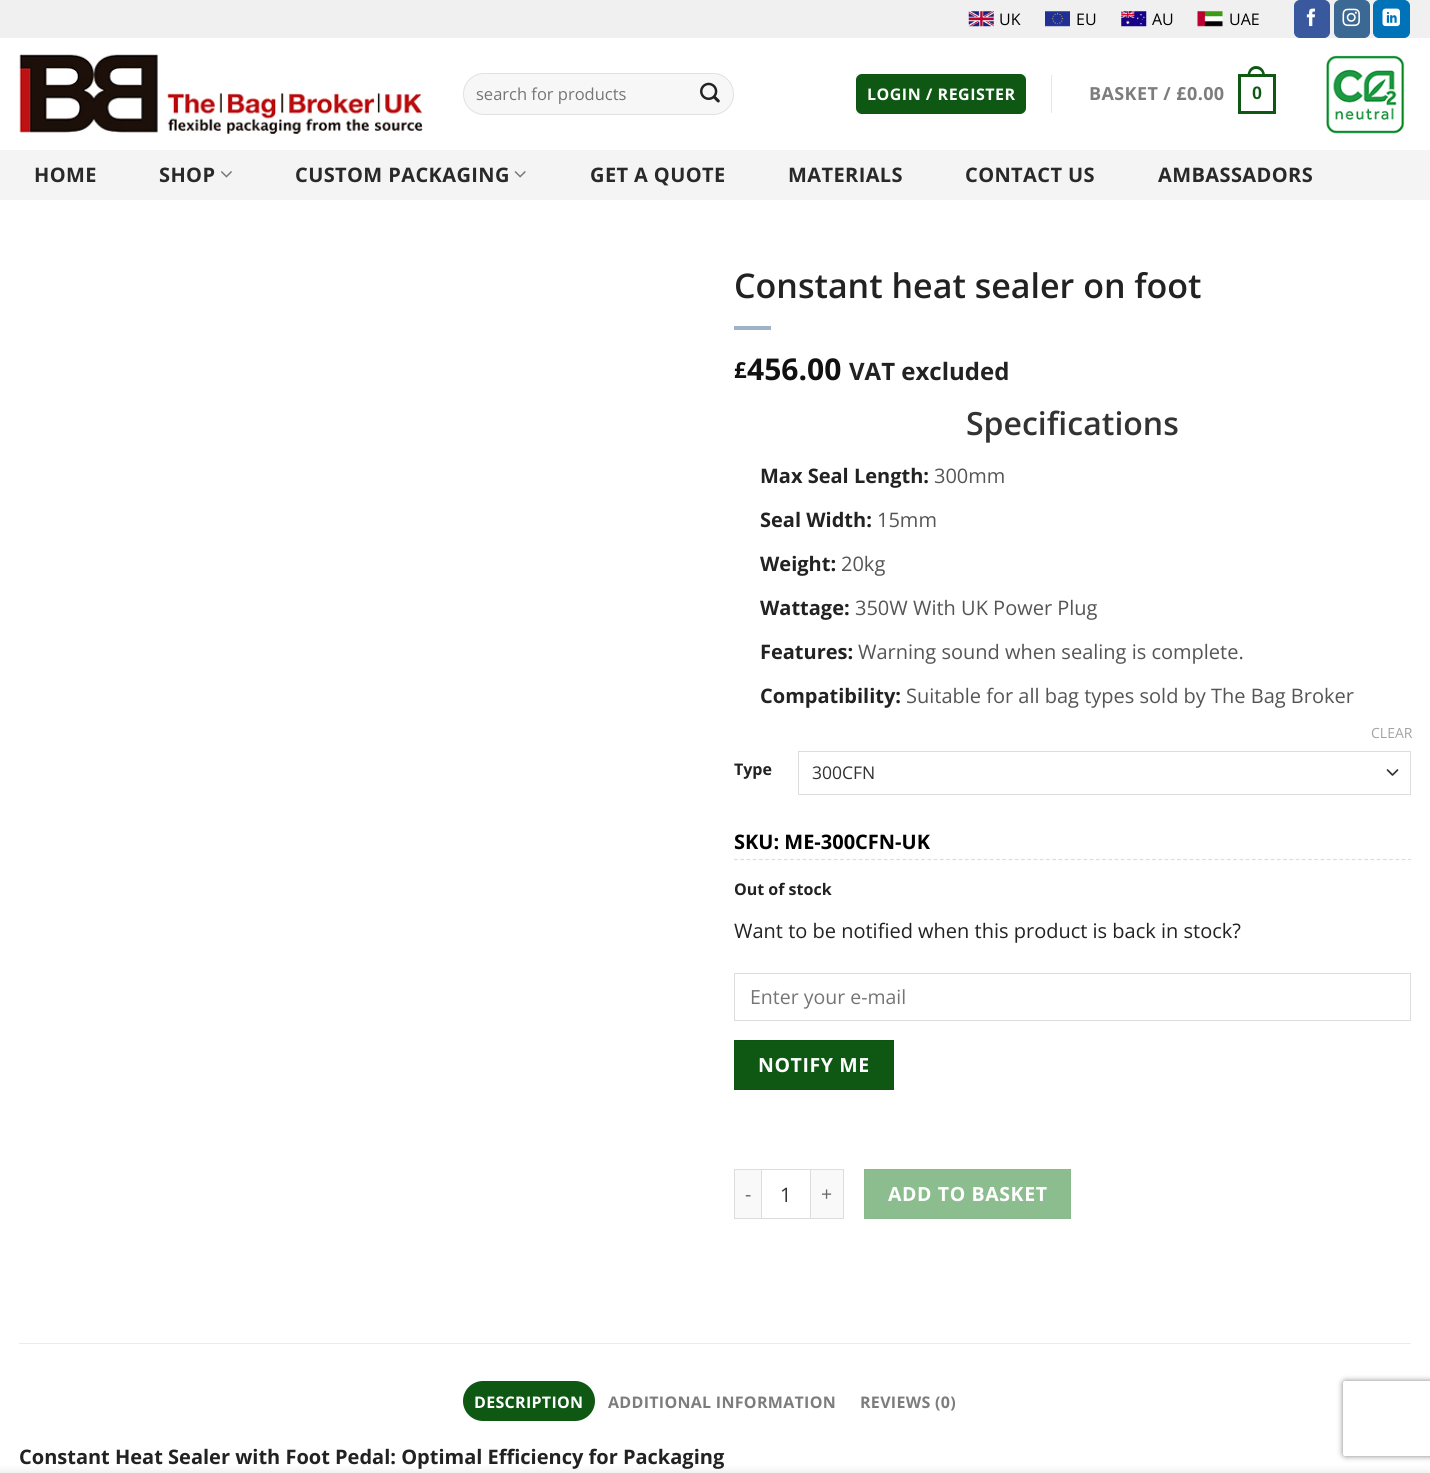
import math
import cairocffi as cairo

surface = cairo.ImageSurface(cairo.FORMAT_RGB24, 1430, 1473)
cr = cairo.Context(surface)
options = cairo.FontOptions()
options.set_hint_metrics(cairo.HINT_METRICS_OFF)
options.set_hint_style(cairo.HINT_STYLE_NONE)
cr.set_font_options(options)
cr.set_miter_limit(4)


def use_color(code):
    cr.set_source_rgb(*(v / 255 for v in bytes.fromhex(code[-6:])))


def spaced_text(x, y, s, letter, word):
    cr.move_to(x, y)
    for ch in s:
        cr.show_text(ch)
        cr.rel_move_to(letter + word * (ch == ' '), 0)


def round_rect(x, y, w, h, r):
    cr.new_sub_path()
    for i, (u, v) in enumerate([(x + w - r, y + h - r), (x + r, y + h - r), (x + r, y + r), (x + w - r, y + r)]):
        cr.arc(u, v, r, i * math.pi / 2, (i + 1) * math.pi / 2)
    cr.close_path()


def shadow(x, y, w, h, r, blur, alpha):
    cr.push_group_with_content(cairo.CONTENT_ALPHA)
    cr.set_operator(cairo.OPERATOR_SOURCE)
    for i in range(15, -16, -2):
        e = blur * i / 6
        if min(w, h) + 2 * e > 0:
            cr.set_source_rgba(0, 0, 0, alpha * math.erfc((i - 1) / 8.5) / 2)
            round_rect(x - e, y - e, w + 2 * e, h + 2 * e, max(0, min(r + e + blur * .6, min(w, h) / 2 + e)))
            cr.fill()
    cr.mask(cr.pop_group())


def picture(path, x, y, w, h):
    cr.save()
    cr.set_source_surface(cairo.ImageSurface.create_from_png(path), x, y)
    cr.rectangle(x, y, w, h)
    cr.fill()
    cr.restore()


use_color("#ffffff")
cr.paint()
use_color("#f0f0f0")
cr.rectangle(0, 0, 1430, 38)
cr.fill()
picture("img1.png", 968, 11, 26, 16)
cr.select_font_face("Open Sans")
cr.set_font_size(16)
use_color("#000000")
cr.move_to(999, 25)
cr.show_text("UK")
picture("img2.png", 1045, 11, 25, 16)
cr.move_to(1076, 25)
cr.show_text("EU")
picture("img3.png", 1121, 11, 26, 16)
cr.move_to(1152, 25)
cr.show_text("AU")
picture("img4.png", 1197, 11, 26, 16)
cr.move_to(1229, 25)
cr.show_text("UAE")
use_color("#3a589d")
round_rect(1294.5, 0.5, 35, 37, 5.5)
cr.fill_preserve()
cr.set_line_width(1)
cr.stroke()
picture("img5.png", 1306, 8, 9, 19)
use_color("#3b6994")
round_rect(1334.5, 0.5, 35, 37, 5.5)
cr.fill_preserve()
cr.stroke()
picture("img6.png", 1342, 8, 18, 19)
use_color("#0072b7")
round_rect(1373.5, 0.5, 36, 37, 5.5)
cr.fill_preserve()
cr.stroke()
picture("img7.png", 1382, 8, 18, 19)
picture("img8.png", 19, 54, 406, 80)
use_color("#f7f7f7")
round_rect(463, 73, 271, 42, 21)
cr.fill()
round_rect(463.5, 73.5, 270, 41, 20.5)
cr.set_source_rgba(0, 0, 0, 0.09)
cr.stroke()
cr.set_font_size(16.5)
use_color("#757575")
cr.move_to(476, 100)
cr.show_text("search for products")
picture("img9.png", 700, 82, 20, 21)
use_color("#0e5814")
round_rect(856, 74, 170, 40, 6)
cr.fill()
cr.rectangle(856.5, 74.5, 169, 39)
cr.set_source_rgba(0, 0, 0, 0.05)
cr.stroke()
cr.select_font_face("Open Sans", cairo.FONT_SLANT_NORMAL, cairo.FONT_WEIGHT_BOLD)
cr.set_font_size(16)
use_color("#ffffff")
spaced_text(867, 100, "LOGIN / REGISTER", 0.5, 0)
use_color("#e6e6e6")
cr.rectangle(1051, 75, 1, 38)
cr.fill()
cr.set_font_size(18)
use_color("#7d7d7d")
spaced_text(1089, 100, "BASKET / £0.00", 0.4, 0)
cr.rectangle(1239.5, 75.5, 35, 37)
use_color("#0e5814")
cr.set_line_width(3)
cr.stroke()
cr.set_fill_rule(cairo.FILL_RULE_EVEN_ODD)
cr.new_path()
cr.move_to(1256, 66)
cr.curve_to(1262, 66, 1265, 71, 1265, 76)
cr.line_to(1247.5, 76)
cr.curve_to(1247.5, 71, 1250.5, 66, 1256, 66)
cr.close_path()
cr.move_to(1256, 69)
cr.curve_to(1260.5, 69, 1262.5, 72.5, 1262.5, 76)
cr.line_to(1250, 76)
cr.curve_to(1250, 72.5, 1252, 69, 1256, 69)
cr.close_path()
cr.fill()
cr.select_font_face("Liberation Sans", cairo.FONT_SLANT_NORMAL, cairo.FONT_WEIGHT_BOLD)
spaced_text(1252, 99, "0", 0.4, 0)
picture("img10.png", 1326, 55, 79, 79)
use_color("#f4f4f4")
cr.rectangle(0, 150, 1430, 50)
cr.fill()
cr.select_font_face("Open Sans", cairo.FONT_SLANT_NORMAL, cairo.FONT_WEIGHT_BOLD)
cr.set_font_size(20)
use_color("#292929")
spaced_text(34, 182, "HOME", 0.4, 0)
spaced_text(159, 182, "SHOP", 0.4, 0)
picture("img11.png", 221, 171, 11, 7)
spaced_text(295, 182, "CUSTOM PACKAGING", 0.4, 0)
picture("img12.png", 514, 171, 12, 7)
spaced_text(590, 182, "GET A QUOTE", 0.4, 0)
spaced_text(788, 182, "MATERIALS", 0.4, 0)
spaced_text(965, 182, "CONTACT US", 0.4, 0)
spaced_text(1158, 182, "AMBASSADORS", 0.4, 0)
cr.select_font_face("Open Sans SemiBold")
cr.set_font_size(34)
use_color("#222222")
cr.move_to(734, 298)
cr.show_text("Constant heat sealer on foot")
use_color("#9fb3c8")
cr.rectangle(734, 326, 37, 4)
cr.fill()
cr.select_font_face("Open Sans", cairo.FONT_SLANT_NORMAL, cairo.FONT_WEIGHT_BOLD)
cr.set_font_size(22)
use_color("#111111")
cr.move_to(734, 378)
cr.show_text("£")
cr.set_font_size(30)
cr.move_to(747, 380)
cr.show_text("456.00")
cr.set_font_size(24)
use_color("#222222")
cr.move_to(849, 380)
cr.show_text("VAT excluded")
cr.select_font_face("Open Sans SemiBold")
cr.set_font_size(32)
use_color("#333333")
cr.move_to(966, 435)
cr.show_text("Specifications")
cr.select_font_face("Open Sans", cairo.FONT_SLANT_NORMAL, cairo.FONT_WEIGHT_BOLD)
cr.set_font_size(20)
use_color("#222222")
cr.move_to(760, 483)
cr.show_text("Max Seal Length:")
cr.select_font_face("Open Sans")
use_color("#555555")
cr.move_to(934, 483)
cr.show_text("300mm")
cr.select_font_face("Open Sans", cairo.FONT_SLANT_NORMAL, cairo.FONT_WEIGHT_BOLD)
use_color("#222222")
cr.move_to(760, 527)
cr.show_text("Seal Width:")
cr.select_font_face("Open Sans")
use_color("#555555")
cr.move_to(877, 527)
cr.show_text("15mm")
cr.select_font_face("Open Sans", cairo.FONT_SLANT_NORMAL, cairo.FONT_WEIGHT_BOLD)
use_color("#222222")
cr.move_to(760, 571)
cr.show_text("Weight:")
cr.select_font_face("Open Sans")
use_color("#555555")
cr.move_to(841, 571)
cr.show_text("20kg")
cr.select_font_face("Open Sans", cairo.FONT_SLANT_NORMAL, cairo.FONT_WEIGHT_BOLD)
use_color("#222222")
cr.move_to(760, 615)
cr.show_text("Wattage:")
cr.select_font_face("Open Sans")
use_color("#555555")
cr.move_to(855, 615)
cr.show_text("350W With UK Power Plug")
cr.select_font_face("Open Sans", cairo.FONT_SLANT_NORMAL, cairo.FONT_WEIGHT_BOLD)
use_color("#222222")
cr.move_to(760, 659)
cr.show_text("Features:")
cr.select_font_face("Open Sans")
use_color("#555555")
cr.move_to(858, 659)
cr.show_text("Warning sound when sealing is complete.")
cr.select_font_face("Open Sans", cairo.FONT_SLANT_NORMAL, cairo.FONT_WEIGHT_BOLD)
use_color("#222222")
cr.move_to(760, 703)
cr.show_text("Compatibility:")
cr.select_font_face("Open Sans")
use_color("#555555")
cr.move_to(906, 703)
cr.show_text("Suitable for all bag types sold by The Bag Broker")
cr.select_font_face("Open Sans", cairo.FONT_SLANT_NORMAL, cairo.FONT_WEIGHT_BOLD)
cr.set_font_size(16)
use_color("#222222")
cr.move_to(734, 775)
cr.show_text("Type")
cr.select_font_face("Open Sans")
cr.set_font_size(14)
use_color("#a3a3a3")
cr.move_to(1371, 738)
cr.show_text("CLEAR")
cr.new_path()
cr.move_to(1387.5, 770)
cr.line_to(1392.5, 775)
cr.line_to(1397.5, 770)
use_color("#333333")
cr.set_line_width(1.7)
cr.set_line_cap(cairo.LINE_CAP_ROUND)
cr.set_line_join(cairo.LINE_JOIN_ROUND)
cr.stroke()
cr.rectangle(798.5, 751.5, 612, 43)
use_color("#dddddd")
cr.set_line_width(1)
cr.set_line_cap(cairo.LINE_CAP_BUTT)
cr.set_line_join(cairo.LINE_JOIN_MITER)
cr.stroke()
cr.set_font_size(17.5)
use_color("#333333")
cr.move_to(812, 779)
cr.show_text("300CFN")
cr.select_font_face("Open Sans", cairo.FONT_SLANT_NORMAL, cairo.FONT_WEIGHT_BOLD)
cr.set_font_size(20)
use_color("#000000")
cr.move_to(734, 849)
cr.show_text("SKU: ME-300CFN-UK")
cr.new_path()
cr.move_to(734, 859.5)
cr.line_to(1411, 859.5)
use_color("#dddddd")
cr.set_line_width(1.2)
cr.set_dash([3.75, 2.49])
cr.stroke()
cr.set_font_size(16)
use_color("#222222")
cr.move_to(734, 895)
cr.show_text("Out of stock")
cr.select_font_face("Open Sans")
cr.set_font_size(20)
cr.move_to(734, 938)
cr.show_text("Want to be notified when this product is back in stock?")
cr.rectangle(734.5, 973.5, 676, 47)
use_color("#dddddd")
cr.set_line_width(1)
cr.set_dash([])
cr.stroke()
cr.set_font_size(19.5)
use_color("#757575")
cr.move_to(750, 1004)
cr.show_text("Enter your e-mail")
use_color("#0e5814")
cr.rectangle(734.5, 1040.5, 159, 49)
cr.fill_preserve()
use_color("#0d5413")
cr.stroke()
cr.select_font_face("Open Sans", cairo.FONT_SLANT_NORMAL, cairo.FONT_WEIGHT_BOLD)
use_color("#ffffff")
spaced_text(758, 1072, "NOTIFY ME", 0.6, 0)
use_color("#f9f9f9")
cr.rectangle(735, 1170, 26, 48)
cr.fill()
use_color("#dddddd")
cr.rectangle(734, 1169, 27, 1)
cr.fill()
cr.rectangle(734, 1218, 27, 1)
cr.fill()
cr.rectangle(734, 1169, 1, 50)
cr.fill()
cr.select_font_face("Open Sans")
use_color("#666666")
spaced_text(745, 1201, "-", 0.6, 0)
cr.rectangle(761.5, 1169.5, 49, 49)
use_color("#dddddd")
cr.stroke()
cr.set_font_size(20)
use_color("#333333")
cr.move_to(780, 1202)
cr.show_text("1")
use_color("#f9f9f9")
cr.rectangle(811, 1170, 32, 48)
cr.fill()
use_color("#dddddd")
cr.rectangle(811, 1169, 33, 1)
cr.fill()
cr.rectangle(843, 1169, 1, 50)
cr.fill()
cr.rectangle(811, 1218, 33, 1)
cr.fill()
cr.set_font_size(19.5)
use_color("#666666")
spaced_text(821, 1201, "+", 0.6, 0)
use_color("#8cbd8e")
cr.rectangle(864.5, 1169.5, 206, 49)
cr.fill_preserve()
use_color("#8ab98c")
cr.stroke()
cr.select_font_face("Open Sans", cairo.FONT_SLANT_NORMAL, cairo.FONT_WEIGHT_BOLD)
use_color("#ffffff")
spaced_text(888, 1201, "ADD TO BASKET", 0.6, 0)
use_color("#ececec")
cr.rectangle(19, 1343, 1392, 1)
cr.fill()
use_color("#0e5814")
round_rect(463, 1381, 132, 40, 20)
cr.fill()
cr.set_font_size(16)
use_color("#ffffff")
spaced_text(474, 1408, "DESCRIPTION", 0.3, 0)
use_color("#7d7d7d")
spaced_text(608, 1408, "ADDITIONAL INFORMATION", 0.3, 0)
spaced_text(860, 1408, "REVIEWS (0)", 0.3, 0)
cr.set_font_size(20)
use_color("#222222")
cr.move_to(19, 1464)
cr.show_text("Constant Heat Sealer with Foot Pedal: Optimal Efficiency for Packaging")
cr.save()
cr.new_path()
cr.move_to(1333, 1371)
cr.line_to(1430, 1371)
cr.line_to(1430, 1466)
cr.line_to(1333, 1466)
cr.close_path()
cr.move_to(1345.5, 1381)
cr.line_to(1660.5, 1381)
cr.curve_to(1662, 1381, 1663, 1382, 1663, 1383.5)
cr.line_to(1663, 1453.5)
cr.curve_to(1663, 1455, 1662, 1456, 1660.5, 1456)
cr.line_to(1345.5, 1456)
cr.curve_to(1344, 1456, 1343, 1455, 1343, 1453.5)
cr.line_to(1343, 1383.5)
cr.curve_to(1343, 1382, 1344, 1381, 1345.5, 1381)
cr.close_path()
cr.clip()
use_color("#808080")
shadow(1343, 1381, 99, 75, 2.5, 3, 1)
cr.restore()
use_color("#000000")
shadow(0, 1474, 1430, 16, 0, 5.5, 0.14)
surface.write_to_png("result.png")
